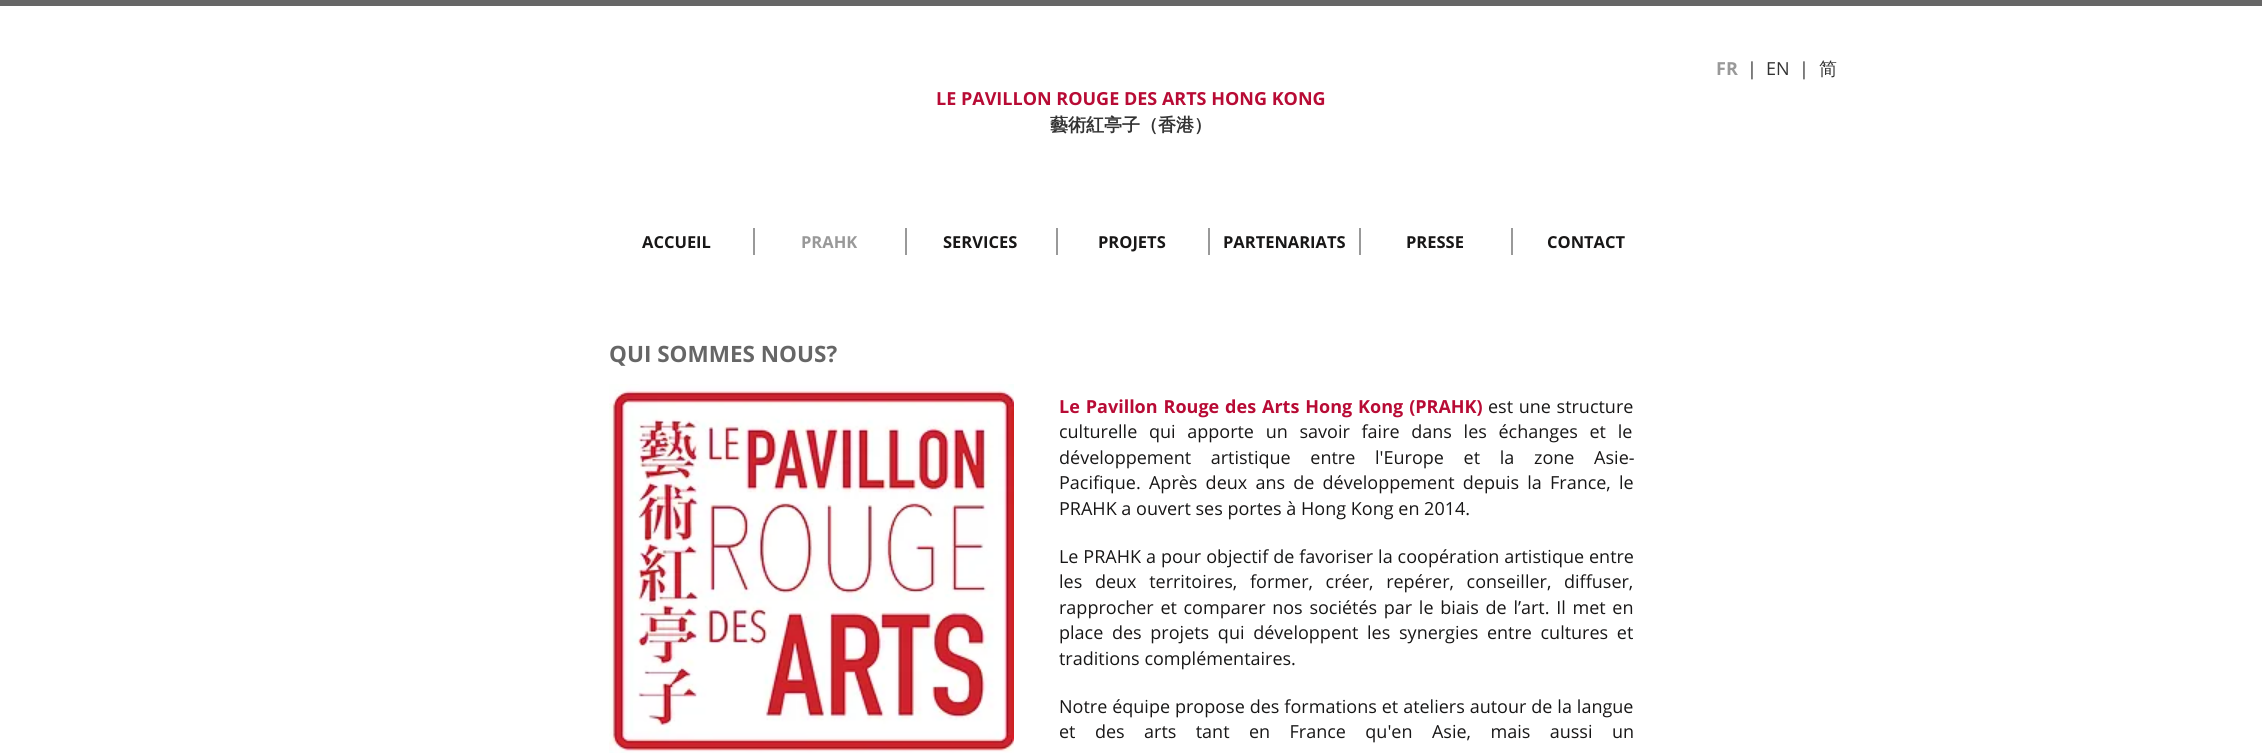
import math
import cairocffi as cairo

surface = cairo.ImageSurface(cairo.FORMAT_RGB24, 2262, 753)
cr = cairo.Context(surface)
options = cairo.FontOptions()
options.set_hint_metrics(cairo.HINT_METRICS_OFF)
options.set_hint_style(cairo.HINT_STYLE_NONE)
cr.set_font_options(options)
cr.set_miter_limit(4)


def use_color(code):
    cr.set_source_rgb(*(v / 255 for v in bytes.fromhex(code[-6:])))


def spaced_text(x, y, s, letter, word):
    cr.move_to(x, y)
    for ch in s:
        cr.show_text(ch)
        cr.rel_move_to(letter + word * (ch == ' '), 0)


def picture(path, x, y, w, h):
    cr.save()
    cr.set_source_surface(cairo.ImageSurface.create_from_png(path), x, y)
    cr.rectangle(x, y, w, h)
    cr.fill()
    cr.restore()


use_color("#ffffff")
cr.paint()
cr.select_font_face("Open Sans", cairo.FONT_SLANT_NORMAL, cairo.FONT_WEIGHT_BOLD)
cr.set_font_size(18)
use_color("#999999")
cr.move_to(1716, 75)
cr.show_text("FR")
cr.select_font_face("Open Sans")
use_color("#333333")
cr.move_to(1747, 75)
cr.show_text("|")
cr.move_to(1766, 75)
cr.show_text("EN  |")
cr.select_font_face("WenQuanYi Zen Hei Medium")
cr.move_to(1819, 75)
cr.show_text("简")
cr.select_font_face("Open Sans", cairo.FONT_SLANT_NORMAL, cairo.FONT_WEIGHT_BOLD)
cr.set_font_size(16.5)
use_color("#181717")
cr.move_to(642, 248)
cr.show_text("ACCUEIL")
use_color("#999999")
cr.rectangle(753, 228, 2, 27)
cr.fill()
cr.move_to(801, 248)
cr.show_text("PRAHK")
cr.rectangle(905, 228, 2, 27)
cr.fill()
use_color("#181717")
cr.move_to(943, 248)
cr.show_text("SERVICES")
use_color("#999999")
cr.rectangle(1056, 228, 2, 27)
cr.fill()
use_color("#181717")
cr.move_to(1098, 248)
cr.show_text("PROJETS")
use_color("#999999")
cr.rectangle(1208, 228, 2, 27)
cr.fill()
use_color("#181717")
cr.move_to(1223, 248)
cr.show_text("PARTENARIATS")
use_color("#999999")
cr.rectangle(1359, 228, 2, 27)
cr.fill()
use_color("#181717")
cr.move_to(1406, 248)
cr.show_text("PRESSE")
use_color("#999999")
cr.rectangle(1511, 228, 2, 27)
cr.fill()
use_color("#181717")
cr.move_to(1547, 248)
cr.show_text("CONTACT")
cr.set_font_size(22.5)
use_color("#666666")
cr.move_to(609, 362)
cr.show_text("QUI SOMMES NOUS?")
picture("img1.png", 609, 384, 405, 369)
cr.set_font_size(18)
use_color("#b80b35")
spaced_text(1059, 413, "Le Pavillon Rouge des Arts Hong Kong (PRAHK)", 0, 1.25)
cr.select_font_face("Open Sans")
use_color("#181717")
spaced_text(1488, 413, "est une structure", 0, 1)
spaced_text(1059, 438, "culturelle qui apporte un savoir faire dans les échanges et le", 0, 7)
spaced_text(1059, 464, "développement artistique entre", 0, 15)
spaced_text(1375, 464, "l'Europe et la zone Asie-", 0, 15)
cr.move_to(1059, 489)
cr.show_text("Pacifique")
spaced_text(1136, 489, ". Après deux ans de développement depuis la France, le", 0, 3.5)
cr.move_to(1059, 515)
cr.show_text("PRAHK a ouvert ses portes à Hong Kong en 2014.")
spaced_text(1059, 563, "Le PRAHK a pour objectif de favoriser la coopération artistique", 0, 0.25)
cr.move_to(1589, 563)
cr.show_text("entre")
spaced_text(1059, 588, "les deux territoires,", 0, 8)
spaced_text(1250, 588, "former, créer, repérer, conseiller, diffuser,", 0, 8)
spaced_text(1059, 614, "rapprocher et comparer nos sociétés par le biais de l’art. Il met en", 0, 2)
spaced_text(1059, 639, "place des projets qui développent les synergies entre cultures et", 0, 4)
cr.move_to(1059, 665)
cr.show_text("traditions complémentaires.")
spaced_text(1059, 713, "Notre équipe propose des formations et ateliers autour de la langue", 0, 0.25)
spaced_text(1059, 738, "et des arts tant en France qu'en Asie, mais aussi un", 0, 14.75)
use_color("#666666")
cr.rectangle(0, 0, 2262, 6)
cr.fill()
cr.select_font_face("Open Sans", cairo.FONT_SLANT_NORMAL, cairo.FONT_WEIGHT_BOLD)
use_color("#b80b35")
cr.move_to(936, 105)
cr.show_text("LE PAVILLON ROUGE DES ARTS HONG KONG")
cr.select_font_face("WenQuanYi Zen Hei", cairo.FONT_SLANT_NORMAL, cairo.FONT_WEIGHT_BOLD)
use_color("#333333")
cr.move_to(1050, 131)
cr.show_text("藝術紅亭子（香港）")
surface.write_to_png("result.png")
